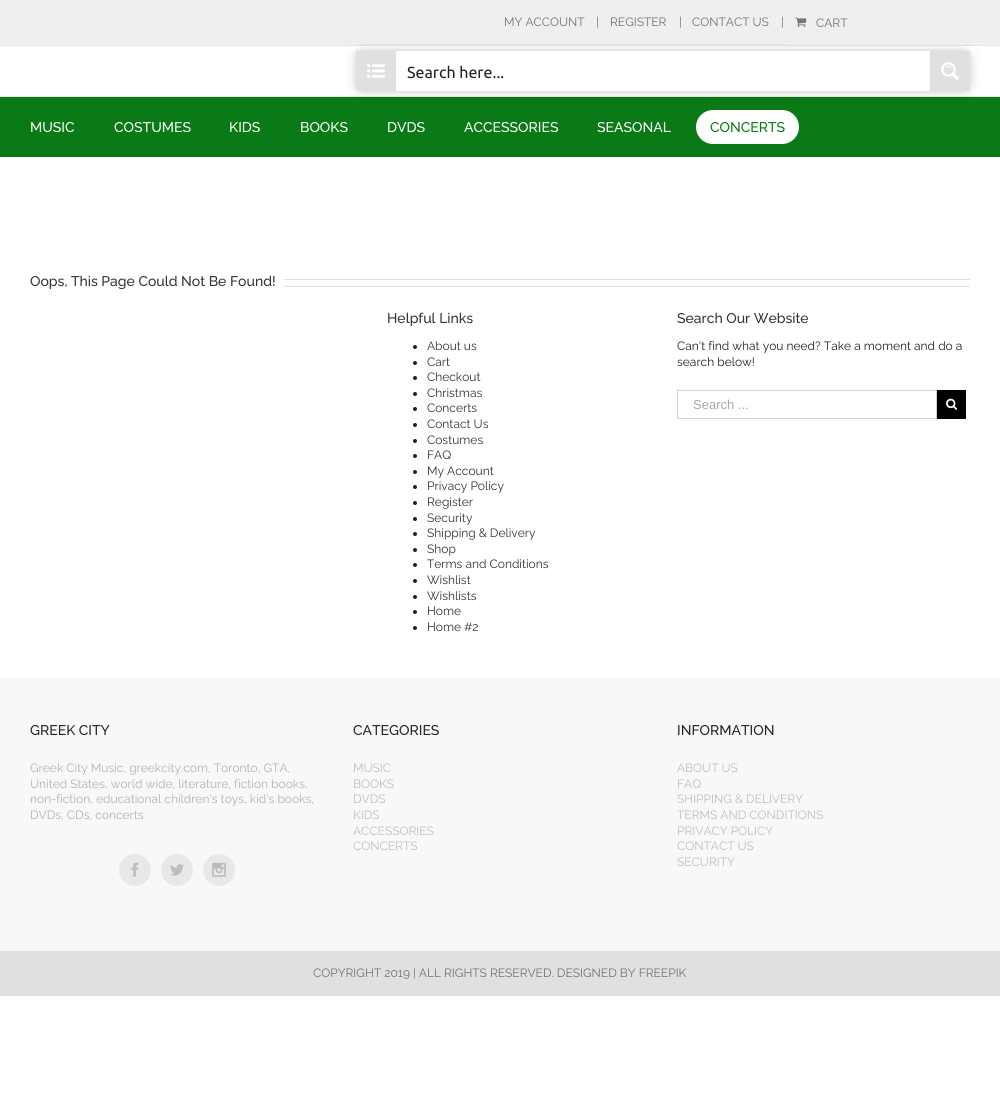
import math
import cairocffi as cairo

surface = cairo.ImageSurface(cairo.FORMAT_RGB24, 1000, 1101)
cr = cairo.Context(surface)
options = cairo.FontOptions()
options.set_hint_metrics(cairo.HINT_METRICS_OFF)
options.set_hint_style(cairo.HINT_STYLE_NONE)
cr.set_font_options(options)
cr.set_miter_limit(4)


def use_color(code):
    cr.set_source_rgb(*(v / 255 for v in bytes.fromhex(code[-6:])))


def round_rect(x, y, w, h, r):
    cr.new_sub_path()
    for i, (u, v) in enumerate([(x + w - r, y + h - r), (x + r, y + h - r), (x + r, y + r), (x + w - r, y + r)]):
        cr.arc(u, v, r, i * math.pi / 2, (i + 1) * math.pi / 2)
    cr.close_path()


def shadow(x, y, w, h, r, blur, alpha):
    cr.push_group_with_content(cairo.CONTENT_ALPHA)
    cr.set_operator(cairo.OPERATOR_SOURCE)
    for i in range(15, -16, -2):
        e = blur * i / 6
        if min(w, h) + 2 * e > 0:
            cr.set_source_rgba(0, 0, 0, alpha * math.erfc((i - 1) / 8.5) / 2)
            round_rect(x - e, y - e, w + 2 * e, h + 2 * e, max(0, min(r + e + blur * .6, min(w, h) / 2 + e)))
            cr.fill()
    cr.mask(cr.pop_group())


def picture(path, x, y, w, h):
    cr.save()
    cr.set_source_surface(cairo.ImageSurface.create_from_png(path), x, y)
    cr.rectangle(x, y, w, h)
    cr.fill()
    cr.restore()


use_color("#ffffff")
cr.paint()
use_color("#efefef")
cr.rectangle(0, 0, 1000, 45)
cr.fill()
use_color("#e5e5e5")
cr.rectangle(0, 45, 1000, 1)
cr.fill()
cr.select_font_face("Raleway")
cr.set_font_size(12)
use_color("#737373")
cr.move_to(504, 26)
cr.show_text("MY ACCOUNT")
cr.move_to(596, 26)
cr.show_text("|")
use_color("#e5e5e5")
cr.rectangle(0, 96, 1000, 1)
cr.fill()
use_color("#097a16")
cr.rectangle(0, 97, 1000, 60)
cr.fill()
use_color("#000000")
shadow(362, 57, 602, 28, 0, 7, 0.63)
use_color("#efefef")
cr.rectangle(604, 42, 1, 2)
cr.fill()
use_color("#737373")
cr.move_to(610, 26)
cr.show_text("REGISTER")
cr.move_to(679, 26)
cr.show_text("|")
use_color("#efefef")
cr.rectangle(686, 42, 1, 2)
cr.fill()
use_color("#737373")
cr.move_to(692, 26)
cr.show_text("CONTACT US")
cr.move_to(781, 26)
cr.show_text("|")
use_color("#efefef")
cr.rectangle(789, 42, 175, 3)
cr.fill()
picture("img1.png", 795, 17, 12, 10)
use_color("#737373")
cr.move_to(816, 27)
cr.show_text("CART")
use_color("#ffffff")
cr.rectangle(396, 51, 534, 40)
cr.fill()
use_color("#e0e0e0")
cr.rectangle(356, 51, 40, 40)
cr.fill()
picture("img2.png", 367, 64, 18, 14)
cr.select_font_face("Ubuntu")
cr.set_font_size(16)
use_color("#222222")
cr.move_to(407, 78)
cr.show_text("Search here...")
use_color("#e0e0e0")
cr.rectangle(930, 51, 40, 40)
cr.fill()
picture("img3.png", 941, 62, 18, 18)
cr.select_font_face("Raleway Medium")
cr.set_font_size(14)
use_color("#ffffff")
cr.move_to(30, 132)
cr.show_text("MUSIC")
cr.move_to(114, 132)
cr.show_text("COSTUMES")
cr.move_to(229, 132)
cr.show_text("KIDS")
cr.move_to(300, 132)
cr.show_text("BOOKS")
cr.move_to(387, 132)
cr.show_text("DVDS")
cr.move_to(464, 132)
cr.show_text("ACCESSORIES")
cr.move_to(597, 132)
cr.show_text("SEASONAL")
round_rect(696, 110, 103, 34, 17)
cr.fill()
use_color("#097a16")
cr.move_to(710, 132)
cr.show_text("CONCERTS")
use_color("#333333")
cr.move_to(30, 286)
cr.show_text("Oops, This Page Could Not Be Found!")
use_color("#e0dede")
cr.rectangle(284, 279, 686, 1)
cr.fill()
cr.rectangle(284, 286, 686, 1)
cr.fill()
use_color("#333333")
cr.move_to(387, 323)
cr.show_text("Helpful Links")
use_color("#222222")
cr.new_path()
cr.arc(415, 347, 2, 0, 2 * math.pi)
cr.fill()
cr.select_font_face("Raleway")
cr.set_font_size(12)
use_color("#333333")
cr.move_to(427, 350)
cr.show_text("About us")
use_color("#222222")
cr.new_path()
cr.arc(415, 363, 2, 0, 2 * math.pi)
cr.fill()
use_color("#333333")
cr.move_to(427, 366)
cr.show_text("Cart")
use_color("#222222")
cr.new_path()
cr.arc(415, 378, 2, 0, 2 * math.pi)
cr.fill()
use_color("#333333")
cr.move_to(427, 381)
cr.show_text("Checkout")
use_color("#222222")
cr.new_path()
cr.arc(415, 394, 2, 0, 2 * math.pi)
cr.fill()
use_color("#333333")
cr.move_to(427, 397)
cr.show_text("Christmas")
use_color("#222222")
cr.new_path()
cr.arc(415, 409, 2, 0, 2 * math.pi)
cr.fill()
use_color("#333333")
cr.move_to(427, 412)
cr.show_text("Concerts")
use_color("#222222")
cr.new_path()
cr.arc(415, 425, 2, 0, 2 * math.pi)
cr.fill()
use_color("#333333")
cr.move_to(427, 428)
cr.show_text("Contact Us")
use_color("#222222")
cr.new_path()
cr.arc(415, 441, 2, 0, 2 * math.pi)
cr.fill()
use_color("#333333")
cr.move_to(427, 444)
cr.show_text("Costumes")
use_color("#222222")
cr.new_path()
cr.arc(415, 456, 2, 0, 2 * math.pi)
cr.fill()
use_color("#333333")
cr.move_to(427, 459)
cr.show_text("FAQ")
use_color("#222222")
cr.new_path()
cr.arc(415, 472, 2, 0, 2 * math.pi)
cr.fill()
use_color("#333333")
cr.move_to(427, 475)
cr.show_text("My Account")
use_color("#222222")
cr.new_path()
cr.arc(415, 487, 2, 0, 2 * math.pi)
cr.fill()
use_color("#333333")
cr.move_to(427, 490)
cr.show_text("Privacy Policy")
use_color("#222222")
cr.new_path()
cr.arc(415, 503, 2, 0, 2 * math.pi)
cr.fill()
use_color("#333333")
cr.move_to(427, 506)
cr.show_text("Register")
use_color("#222222")
cr.new_path()
cr.arc(415, 519, 2, 0, 2 * math.pi)
cr.fill()
use_color("#333333")
cr.move_to(427, 522)
cr.show_text("Security")
use_color("#222222")
cr.new_path()
cr.arc(415, 534, 2, 0, 2 * math.pi)
cr.fill()
use_color("#333333")
cr.move_to(427, 537)
cr.show_text("Shipping & Delivery")
use_color("#222222")
cr.new_path()
cr.arc(415, 550, 2, 0, 2 * math.pi)
cr.fill()
use_color("#333333")
cr.move_to(427, 553)
cr.show_text("Shop")
use_color("#222222")
cr.new_path()
cr.arc(415, 565, 2, 0, 2 * math.pi)
cr.fill()
use_color("#333333")
cr.move_to(427, 568)
cr.show_text("Terms and Conditions")
use_color("#222222")
cr.new_path()
cr.arc(415, 581, 2, 0, 2 * math.pi)
cr.fill()
use_color("#333333")
cr.move_to(427, 584)
cr.show_text("Wishlist")
use_color("#222222")
cr.new_path()
cr.arc(415, 597, 2, 0, 2 * math.pi)
cr.fill()
use_color("#333333")
cr.move_to(427, 600)
cr.show_text("Wishlists")
use_color("#222222")
cr.new_path()
cr.arc(415, 612, 2, 0, 2 * math.pi)
cr.fill()
use_color("#333333")
cr.move_to(427, 615)
cr.show_text("Home")
use_color("#222222")
cr.new_path()
cr.arc(415, 628, 2, 0, 2 * math.pi)
cr.fill()
use_color("#333333")
cr.move_to(427, 631)
cr.show_text("Home #2")
cr.select_font_face("Raleway Medium")
cr.set_font_size(14)
cr.move_to(677, 323)
cr.show_text("Search Our Website")
cr.select_font_face("Raleway")
cr.set_font_size(12)
use_color("#222222")
cr.move_to(677, 350)
cr.show_text("Can't find what you need? Take a moment and do a")
cr.move_to(677, 366)
cr.show_text("search below!")
cr.rectangle(677.5, 390.5, 259, 28)
use_color("#d2d2d2")
cr.set_line_width(1)
cr.stroke()
cr.select_font_face("Liberation Sans")
cr.set_font_size(13)
use_color("#aaa9a9")
cr.move_to(693, 409)
cr.show_text("Search ...")
use_color("#000000")
cr.rectangle(937, 390, 29, 29)
cr.fill()
picture("img4.png", 946, 398, 12, 12)
use_color("#f8f8f8")
cr.rectangle(0, 677, 1000, 274)
cr.fill()
cr.select_font_face("Raleway Medium")
cr.set_font_size(14)
use_color("#222222")
cr.move_to(30, 735)
cr.show_text("GREEK CITY")
cr.select_font_face("Raleway")
cr.set_font_size(12)
use_color("#b2b2b2")
cr.move_to(30, 772)
cr.show_text("Greek City Music, greekcity.com, Toronto, GTA,")
cr.move_to(30, 788)
cr.show_text("United States, world wide, literature, fiction books,")
cr.move_to(30, 803)
cr.show_text("non-fiction, educational children’s toys, kid’s books,")
cr.move_to(30, 819)
cr.show_text("DVDs, CDs, concerts")
use_color("#e8e8e8")
cr.new_path()
cr.arc(135, 870, 15.5, 0, 2 * math.pi)
cr.fill_preserve()
cr.stroke()
picture("img5.png", 131, 862, 7, 15)
cr.arc(177, 870, 15.5, 0, 2 * math.pi)
cr.fill_preserve()
cr.stroke()
picture("img6.png", 170, 864, 14, 12)
cr.arc(219, 870, 15.5, 0, 2 * math.pi)
cr.fill_preserve()
cr.stroke()
picture("img7.png", 212, 862, 14, 15)
cr.select_font_face("Raleway Medium")
cr.set_font_size(14)
use_color("#222222")
cr.move_to(353, 735)
cr.show_text("CATEGORIES")
cr.select_font_face("Raleway")
cr.set_font_size(12)
use_color("#bfbfbf")
cr.move_to(353, 772)
cr.show_text("MUSIC")
cr.move_to(353, 788)
cr.show_text("BOOKS")
cr.move_to(353, 803)
cr.show_text("DVDS")
cr.move_to(353, 819)
cr.show_text("KIDS")
cr.move_to(353, 835)
cr.show_text("ACCESSORIES")
cr.move_to(353, 850)
cr.show_text("CONCERTS")
cr.select_font_face("Raleway Medium")
cr.set_font_size(14)
use_color("#222222")
cr.move_to(677, 735)
cr.show_text("INFORMATION")
cr.select_font_face("Raleway")
cr.set_font_size(12)
use_color("#bfbfbf")
cr.move_to(677, 772)
cr.show_text("ABOUT US")
cr.move_to(677, 788)
cr.show_text("FAQ")
cr.move_to(677, 803)
cr.show_text("SHIPPING & DELIVERY")
cr.move_to(677, 819)
cr.show_text("TERMS AND CONDITIONS")
cr.move_to(677, 835)
cr.show_text("PRIVACY POLICY")
cr.move_to(677, 850)
cr.show_text("CONTACT US")
cr.move_to(677, 866)
cr.show_text("SECURITY")
use_color("#e0e0e0")
cr.rectangle(0, 951, 1000, 45)
cr.fill()
use_color("#737373")
cr.move_to(313, 977)
cr.show_text("COPYRIGHT 2019 | ALL RIGHTS RESERVED. DESIGNED BY FREEPIK")
surface.write_to_png("result.png")
